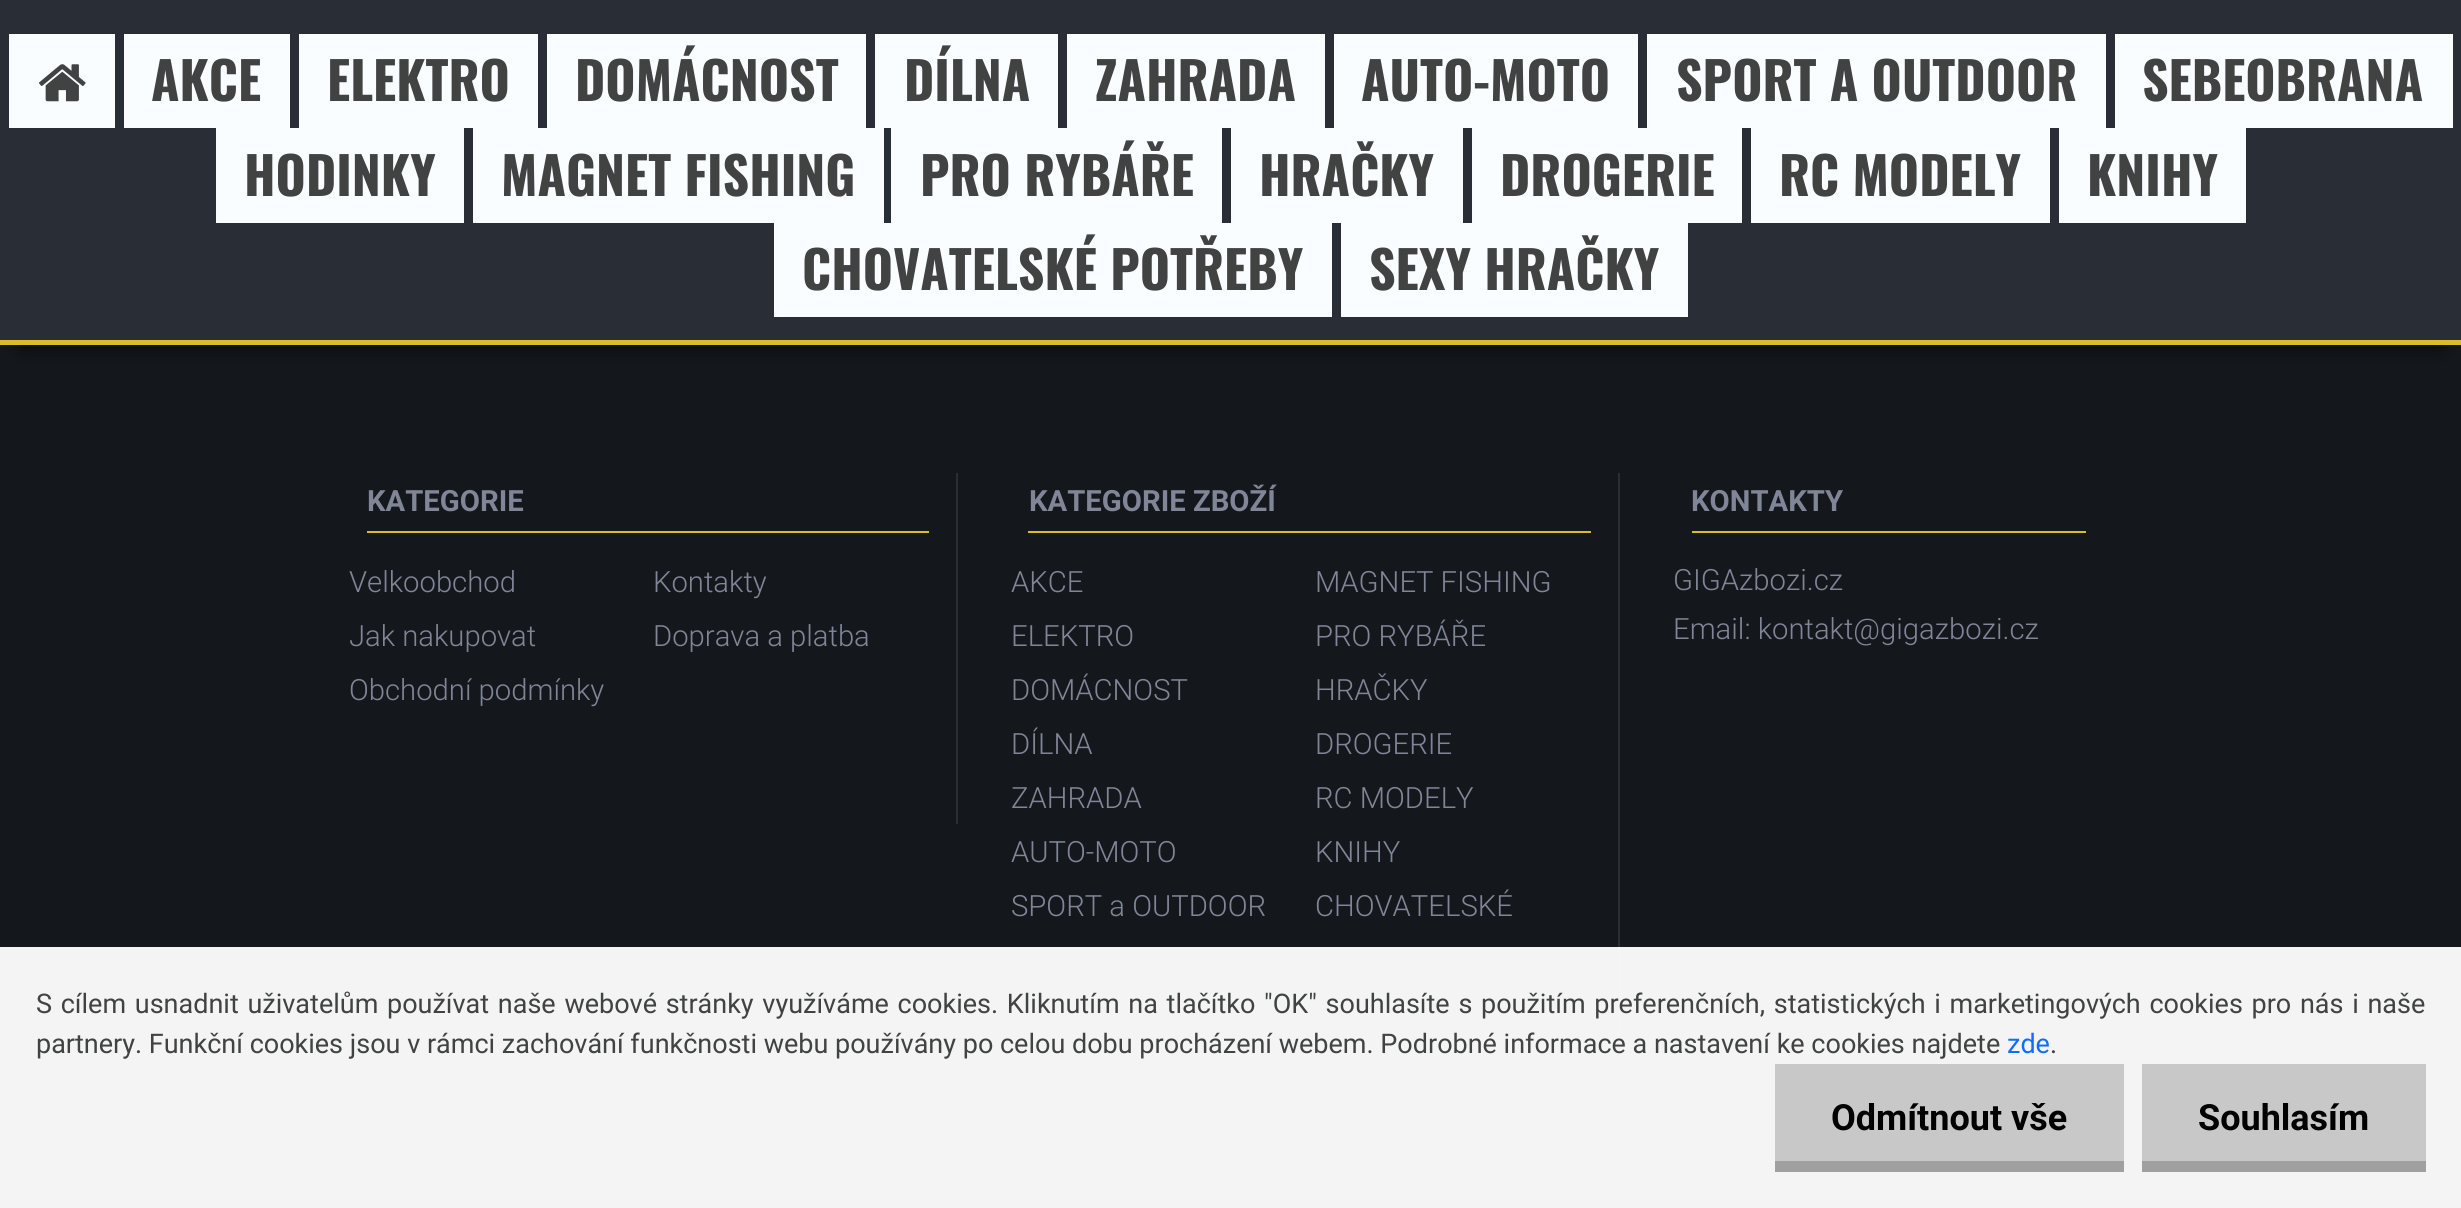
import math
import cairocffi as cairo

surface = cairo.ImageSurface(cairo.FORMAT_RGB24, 2461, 1208)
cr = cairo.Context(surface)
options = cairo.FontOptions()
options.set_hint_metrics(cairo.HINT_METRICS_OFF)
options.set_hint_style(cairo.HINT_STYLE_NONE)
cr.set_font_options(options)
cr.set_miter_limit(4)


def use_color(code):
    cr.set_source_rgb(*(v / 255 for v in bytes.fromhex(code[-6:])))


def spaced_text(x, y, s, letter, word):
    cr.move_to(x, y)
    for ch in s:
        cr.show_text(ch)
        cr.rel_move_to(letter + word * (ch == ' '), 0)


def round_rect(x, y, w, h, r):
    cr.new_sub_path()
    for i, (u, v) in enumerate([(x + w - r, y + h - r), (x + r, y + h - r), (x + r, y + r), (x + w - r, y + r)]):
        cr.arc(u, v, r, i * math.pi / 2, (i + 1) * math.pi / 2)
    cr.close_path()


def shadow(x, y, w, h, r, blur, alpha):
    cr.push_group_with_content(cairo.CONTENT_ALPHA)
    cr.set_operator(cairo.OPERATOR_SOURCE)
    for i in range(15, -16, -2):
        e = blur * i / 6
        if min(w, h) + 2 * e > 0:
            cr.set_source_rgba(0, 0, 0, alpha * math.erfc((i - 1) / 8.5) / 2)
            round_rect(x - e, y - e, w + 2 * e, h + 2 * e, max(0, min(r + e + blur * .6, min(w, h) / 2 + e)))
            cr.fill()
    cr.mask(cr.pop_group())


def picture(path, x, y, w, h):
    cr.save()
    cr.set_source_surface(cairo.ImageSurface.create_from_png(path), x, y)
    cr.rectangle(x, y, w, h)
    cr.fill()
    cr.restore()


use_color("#14171c")
cr.paint()
use_color("#000000")
shadow(23, 45, 2416, 299, 0, 11, 1)
use_color("#282d36")
cr.rectangle(0, 0, 2461, 340)
cr.fill()
use_color("#d9bd2b")
cr.rectangle(0, 340, 2461, 5)
cr.fill()
use_color("#fafdff")
cr.rectangle(9, 34, 106, 94)
cr.fill()
picture("img1.png", 39, 64, 47, 38)
cr.rectangle(124, 34, 166, 94)
cr.fill()
cr.select_font_face("Oswald", cairo.FONT_SLANT_NORMAL, cairo.FONT_WEIGHT_BOLD)
cr.set_font_size(51.75)
use_color("#414242")
cr.move_to(151, 101)
cr.show_text("AKCE")
use_color("#fafdff")
cr.rectangle(299, 34, 239, 94)
cr.fill()
use_color("#414242")
cr.move_to(327, 101)
cr.show_text("ELEKTRO")
use_color("#fafdff")
cr.rectangle(547, 34, 319, 94)
cr.fill()
use_color("#414242")
cr.move_to(575, 101)
cr.show_text("DOMÁCNOST")
use_color("#fafdff")
cr.rectangle(875, 34, 183, 94)
cr.fill()
use_color("#414242")
cr.move_to(904, 101)
cr.show_text("DÍLNA")
use_color("#fafdff")
cr.rectangle(1067, 34, 258, 94)
cr.fill()
use_color("#414242")
cr.move_to(1095, 101)
cr.show_text("ZAHRADA")
use_color("#fafdff")
cr.rectangle(1334, 34, 304, 94)
cr.fill()
use_color("#414242")
cr.move_to(1361, 101)
cr.show_text("AUTO-MOTO")
use_color("#fafdff")
cr.rectangle(1647, 34, 459, 94)
cr.fill()
use_color("#414242")
cr.move_to(1676, 101)
cr.show_text("SPORT A OUTDOOR")
use_color("#fafdff")
cr.rectangle(2115, 34, 338, 94)
cr.fill()
use_color("#414242")
cr.move_to(2142, 101)
cr.show_text("SEBEOBRANA")
use_color("#fafdff")
cr.rectangle(216, 128, 248, 95)
cr.fill()
use_color("#414242")
cr.move_to(244, 196)
cr.show_text("HODINKY")
use_color("#fafdff")
cr.rectangle(473, 128, 411, 95)
cr.fill()
use_color("#414242")
cr.move_to(501, 196)
cr.show_text("MAGNET FISHING")
use_color("#fafdff")
cr.rectangle(891, 128, 331, 95)
cr.fill()
use_color("#414242")
cr.move_to(920, 196)
cr.show_text("PRO RYBÁŘE")
use_color("#fafdff")
cr.rectangle(1231, 128, 232, 95)
cr.fill()
use_color("#414242")
cr.move_to(1259, 196)
cr.show_text("HRAČKY")
use_color("#fafdff")
cr.rectangle(1472, 128, 270, 95)
cr.fill()
use_color("#414242")
cr.move_to(1500, 196)
cr.show_text("DROGERIE")
use_color("#fafdff")
cr.rectangle(1751, 128, 299, 95)
cr.fill()
use_color("#414242")
cr.move_to(1779, 196)
cr.show_text("RC MODELY")
use_color("#fafdff")
cr.rectangle(2059, 128, 187, 95)
cr.fill()
use_color("#414242")
cr.move_to(2087, 196)
cr.show_text("KNIHY")
use_color("#fafdff")
cr.rectangle(774, 223, 558, 94)
cr.fill()
use_color("#414242")
cr.move_to(802, 290)
cr.show_text("CHOVATELSKÉ POTŘEBY")
use_color("#fafdff")
cr.rectangle(1341, 223, 347, 94)
cr.fill()
use_color("#414242")
cr.move_to(1369, 290)
cr.show_text("SEXY HRAČKY")
use_color("#2c2e33")
cr.rectangle(956, 473, 2, 351)
cr.fill()
use_color("#d9bd2b")
cr.rectangle(367, 531, 562, 2)
cr.fill()
cr.select_font_face("Roboto", cairo.FONT_SLANT_NORMAL, cairo.FONT_WEIGHT_BOLD)
cr.set_font_size(29.25)
use_color("#808697")
cr.move_to(367, 511)
cr.show_text("KATEGORIE")
cr.select_font_face("Roboto Light")
cr.move_to(349, 592)
cr.show_text("Velkoobchod")
cr.move_to(653, 592)
cr.show_text("Kontakty")
cr.move_to(349, 646)
cr.show_text("Jak nakupovat")
cr.move_to(653, 646)
cr.show_text("Doprava a platba")
cr.move_to(349, 700)
cr.show_text("Obchodní podmínky")
use_color("#2c2e33")
cr.rectangle(1618, 473, 2, 569)
cr.fill()
use_color("#d9bd2b")
cr.rectangle(1028, 531, 563, 2)
cr.fill()
cr.select_font_face("Roboto", cairo.FONT_SLANT_NORMAL, cairo.FONT_WEIGHT_BOLD)
use_color("#808697")
cr.move_to(1029, 511)
cr.show_text("KATEGORIE ZBOŽÍ")
cr.select_font_face("Roboto Light")
cr.move_to(1011, 592)
cr.show_text("AKCE")
cr.move_to(1315, 592)
cr.show_text("MAGNET FISHING")
cr.move_to(1011, 646)
cr.show_text("ELEKTRO")
cr.move_to(1315, 646)
cr.show_text("PRO RYBÁŘE")
cr.move_to(1011, 700)
cr.show_text("DOMÁCNOST")
cr.move_to(1315, 700)
cr.show_text("HRAČKY")
cr.move_to(1011, 754)
cr.show_text("DÍLNA")
cr.move_to(1315, 754)
cr.show_text("DROGERIE")
cr.move_to(1011, 808)
cr.show_text("ZAHRADA")
cr.move_to(1315, 808)
cr.show_text("RC MODELY")
cr.move_to(1011, 862)
cr.show_text("AUTO-MOTO")
cr.move_to(1315, 862)
cr.show_text("KNIHY")
cr.move_to(1011, 916)
cr.show_text("SPORT a OUTDOOR")
cr.move_to(1315, 916)
cr.show_text("CHOVATELSKÉ")
use_color("#d9bd2b")
cr.rectangle(1692, 531, 394, 2)
cr.fill()
cr.select_font_face("Roboto", cairo.FONT_SLANT_NORMAL, cairo.FONT_WEIGHT_BOLD)
use_color("#808697")
cr.move_to(1691, 511)
cr.show_text("KONTAKTY")
cr.select_font_face("Roboto Light")
cr.move_to(1673, 590)
cr.show_text("GIGAzbozi.cz")
cr.move_to(1673, 639)
cr.show_text("Email: kontakt@gigazbozi.cz")
use_color("#0f1217")
cr.rectangle(0, 1132, 2461, 76)
cr.fill()
cr.set_source_rgba(1, 1, 1, 0.95)
cr.rectangle(0, 947, 2461, 261)
cr.fill()
cr.select_font_face("Roboto")
cr.set_font_size(27)
use_color("#414242")
spaced_text(36, 1013, "S cílem usnadnit uživatelům používat naše webové stránky využíváme cookies. Kliknutím na tlačítko \"OK\" souhlasíte s použitím preferenčních, statistických i marketingových cookies pro nás i naše", 0, 2)
cr.move_to(36, 1053)
cr.show_text("partnery. Funkční cookies jsou v rámci zachování funkčnosti webu používány po celou dobu procházení webem. Podrobné informace a nastavení ke cookies najdete")
use_color("#0d6efd")
cr.move_to(2007, 1053)
cr.show_text("zde")
use_color("#414242")
cr.move_to(2050, 1053)
cr.show_text(".")
use_color("#c8c8c8")
cr.rectangle(1775, 1064, 349, 97)
cr.fill()
use_color("#a0a0a0")
cr.rectangle(1775, 1161, 349, 11)
cr.fill()
cr.select_font_face("Roboto", cairo.FONT_SLANT_NORMAL, cairo.FONT_WEIGHT_BOLD)
cr.set_font_size(36)
use_color("#000000")
cr.move_to(1831, 1130)
cr.show_text("Odmítnout vše")
use_color("#c8c8c8")
cr.rectangle(2142, 1064, 284, 97)
cr.fill()
use_color("#a0a0a0")
cr.rectangle(2142, 1161, 284, 11)
cr.fill()
use_color("#000000")
cr.move_to(2198, 1130)
cr.show_text("Souhlasím")
surface.write_to_png("result.png")
